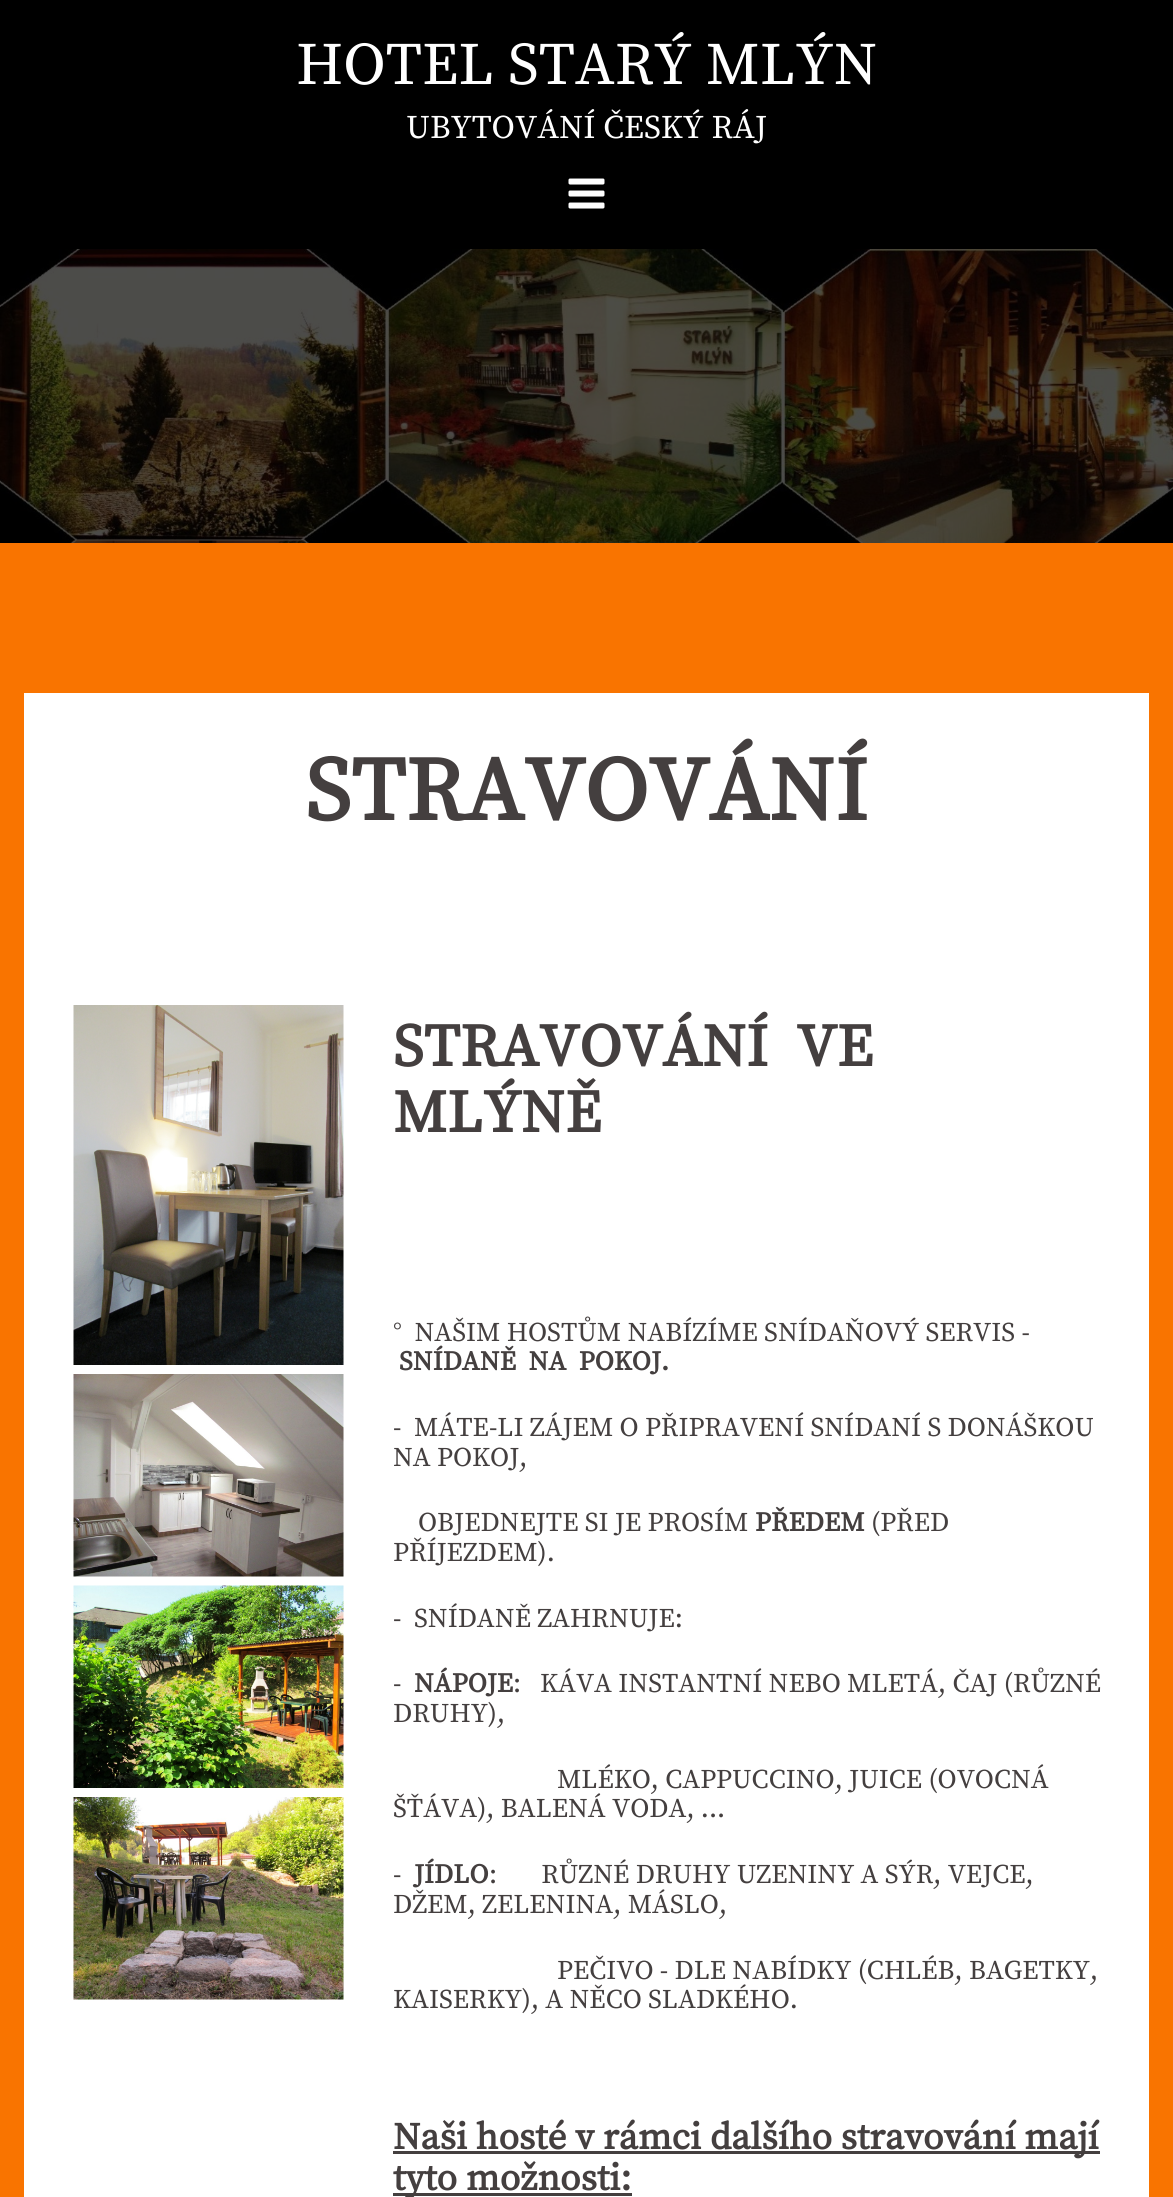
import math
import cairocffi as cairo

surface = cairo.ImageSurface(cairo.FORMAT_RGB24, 1173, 2197)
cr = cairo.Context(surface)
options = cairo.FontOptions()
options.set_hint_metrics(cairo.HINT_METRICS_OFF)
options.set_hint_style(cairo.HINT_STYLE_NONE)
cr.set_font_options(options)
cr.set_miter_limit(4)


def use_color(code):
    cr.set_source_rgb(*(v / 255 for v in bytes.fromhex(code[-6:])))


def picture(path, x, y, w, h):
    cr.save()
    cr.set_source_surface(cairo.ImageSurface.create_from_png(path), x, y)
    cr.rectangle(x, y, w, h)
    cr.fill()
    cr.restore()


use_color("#f97400")
cr.paint()
use_color("#000000")
cr.rectangle(0, 0, 1173, 249)
cr.fill()
cr.select_font_face("Source Serif Pro")
cr.set_font_size(60)
use_color("#ffffff")
cr.move_to(296, 84)
cr.show_text("HOTEL STARÝ MLÝN")
cr.set_font_size(33)
cr.move_to(406, 138)
cr.show_text("UBYTOVÁNÍ ČESKÝ RÁJ")
picture("img1.png", 568, 178, 37, 31)
picture("img2.png", 0, 249, 1173, 294)
cr.rectangle(24, 693, 1125, 1504)
cr.fill()
cr.select_font_face("Source Serif Pro", cairo.FONT_SLANT_NORMAL, cairo.FONT_WEIGHT_BOLD)
cr.set_font_size(90)
use_color("#443f3f")
cr.move_to(305, 820)
cr.show_text("STRAVOVÁNÍ")
picture("img3.png", 73, 1005, 271, 360)
picture("img4.png", 73, 1374, 271, 203)
picture("img5.png", 73, 1585, 271, 203)
picture("img6.png", 73, 1797, 271, 203)
cr.set_font_size(60)
cr.move_to(393, 1066)
cr.show_text("STRAVOVÁNÍ  VE")
cr.move_to(393, 1132)
cr.show_text("MLÝNĚ")
cr.select_font_face("Source Serif Pro")
cr.set_font_size(27)
cr.move_to(393, 1341)
cr.show_text("°  NAŠIM HOSTŮM NABÍZÍME SNÍDAŇOVÝ SERVIS -")
cr.select_font_face("Source Serif Pro", cairo.FONT_SLANT_NORMAL, cairo.FONT_WEIGHT_BOLD)
cr.move_to(399, 1370)
cr.show_text("SNÍDANĚ  NA  POKOJ.")
cr.select_font_face("Source Serif Pro")
cr.move_to(393, 1436)
cr.show_text("-  MÁTE-LI ZÁJEM O PŘIPRAVENÍ SNÍDANÍ S DONÁŠKOU")
cr.move_to(393, 1466)
cr.show_text("NA POKOJ,")
cr.move_to(418, 1531)
cr.show_text("OBJEDNEJTE SI JE PROSÍM")
cr.select_font_face("Source Serif Pro", cairo.FONT_SLANT_NORMAL, cairo.FONT_WEIGHT_BOLD)
cr.move_to(755, 1531)
cr.show_text("PŘEDEM")
cr.select_font_face("Source Serif Pro")
cr.move_to(871, 1531)
cr.show_text("(PŘED")
cr.move_to(393, 1561)
cr.show_text("PŘÍJEZDEM).")
cr.move_to(393, 1627)
cr.show_text("-  SNÍDANĚ ZAHRNUJE:")
cr.move_to(393, 1692)
cr.show_text("-")
cr.select_font_face("Source Serif Pro", cairo.FONT_SLANT_NORMAL, cairo.FONT_WEIGHT_BOLD)
cr.move_to(414, 1692)
cr.show_text("NÁPOJE")
cr.select_font_face("Source Serif Pro")
cr.move_to(513, 1692)
cr.show_text(":   KÁVA INSTANTNÍ NEBO MLETÁ, ČAJ (RŮZNÉ")
cr.move_to(393, 1722)
cr.show_text("DRUHY),")
cr.move_to(557, 1788)
cr.show_text("MLÉKO, CAPPUCCINO, JUICE (OVOCNÁ")
cr.move_to(393, 1817)
cr.show_text("ŠŤÁVA), BALENÁ VODA, ...")
cr.move_to(393, 1883)
cr.show_text("-")
cr.select_font_face("Source Serif Pro", cairo.FONT_SLANT_NORMAL, cairo.FONT_WEIGHT_BOLD)
cr.move_to(414, 1883)
cr.show_text("JÍDLO")
cr.select_font_face("Source Serif Pro")
cr.move_to(489, 1883)
cr.show_text(":       RŮZNÉ DRUHY UZENINY A SÝR, VEJCE,")
cr.move_to(393, 1913)
cr.show_text("DŽEM, ZELENINA, MÁSLO,")
cr.move_to(557, 1979)
cr.show_text("PEČIVO - DLE NABÍDKY (CHLÉB, BAGETKY,")
cr.move_to(393, 2008)
cr.show_text("KAISERKY), A NĚCO SLADKÉHO.")
cr.rectangle(393, 2151, 707, 3)
cr.fill()
cr.select_font_face("Source Serif Pro", cairo.FONT_SLANT_NORMAL, cairo.FONT_WEIGHT_BOLD)
cr.set_font_size(37.5)
cr.move_to(393, 2149)
cr.show_text("Naši hosté v rámci dalšího stravování mají")
cr.rectangle(393, 2193, 239, 3)
cr.fill()
cr.move_to(393, 2190)
cr.show_text("tyto možnosti:")
surface.write_to_png("result.png")
